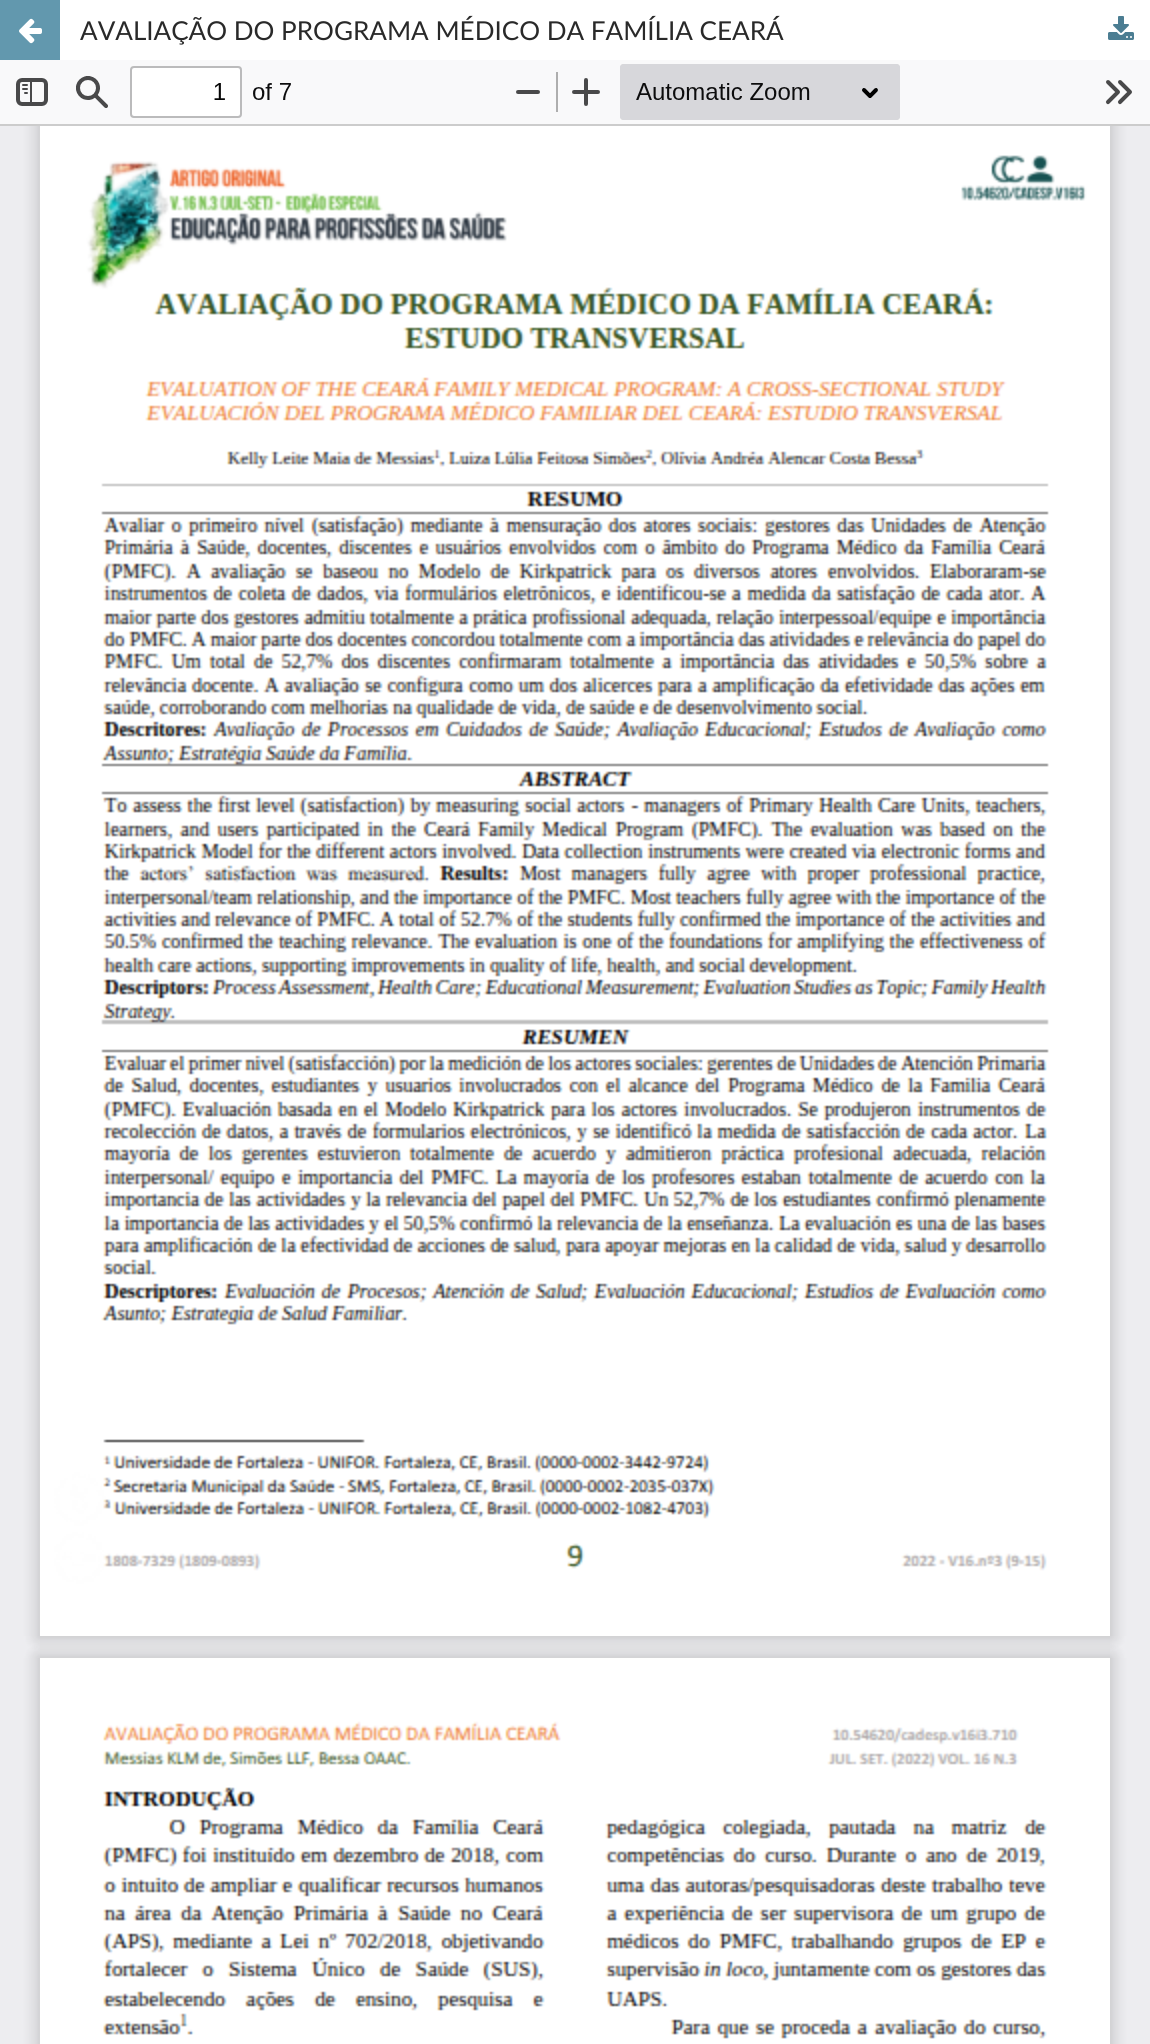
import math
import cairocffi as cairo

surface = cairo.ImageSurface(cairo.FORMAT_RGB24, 1150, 2044)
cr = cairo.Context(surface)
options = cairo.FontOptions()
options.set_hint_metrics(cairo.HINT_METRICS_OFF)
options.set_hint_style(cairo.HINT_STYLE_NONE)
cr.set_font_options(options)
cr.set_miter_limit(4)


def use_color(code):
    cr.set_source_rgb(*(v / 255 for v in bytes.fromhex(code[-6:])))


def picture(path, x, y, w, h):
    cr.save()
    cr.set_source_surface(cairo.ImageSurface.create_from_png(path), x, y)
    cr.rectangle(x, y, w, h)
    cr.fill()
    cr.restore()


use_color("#ffffff")
cr.paint()
use_color("#6298ae")
cr.rectangle(0, 0, 60, 60)
cr.fill()
picture("img1.png", 19, 18, 23, 26)
cr.select_font_face("Lato")
cr.set_font_size(26.05)
use_color("#292929")
cr.move_to(80, 40)
cr.show_text("AVALIAÇÃO DO PROGRAMA MÉDICO DA FAMÍLIA CEARÁ")
picture("img2.png", 1108, 16, 26, 24)
picture("img3.png", 0, 60, 1150, 1984)
surface.write_to_png("result.png")
